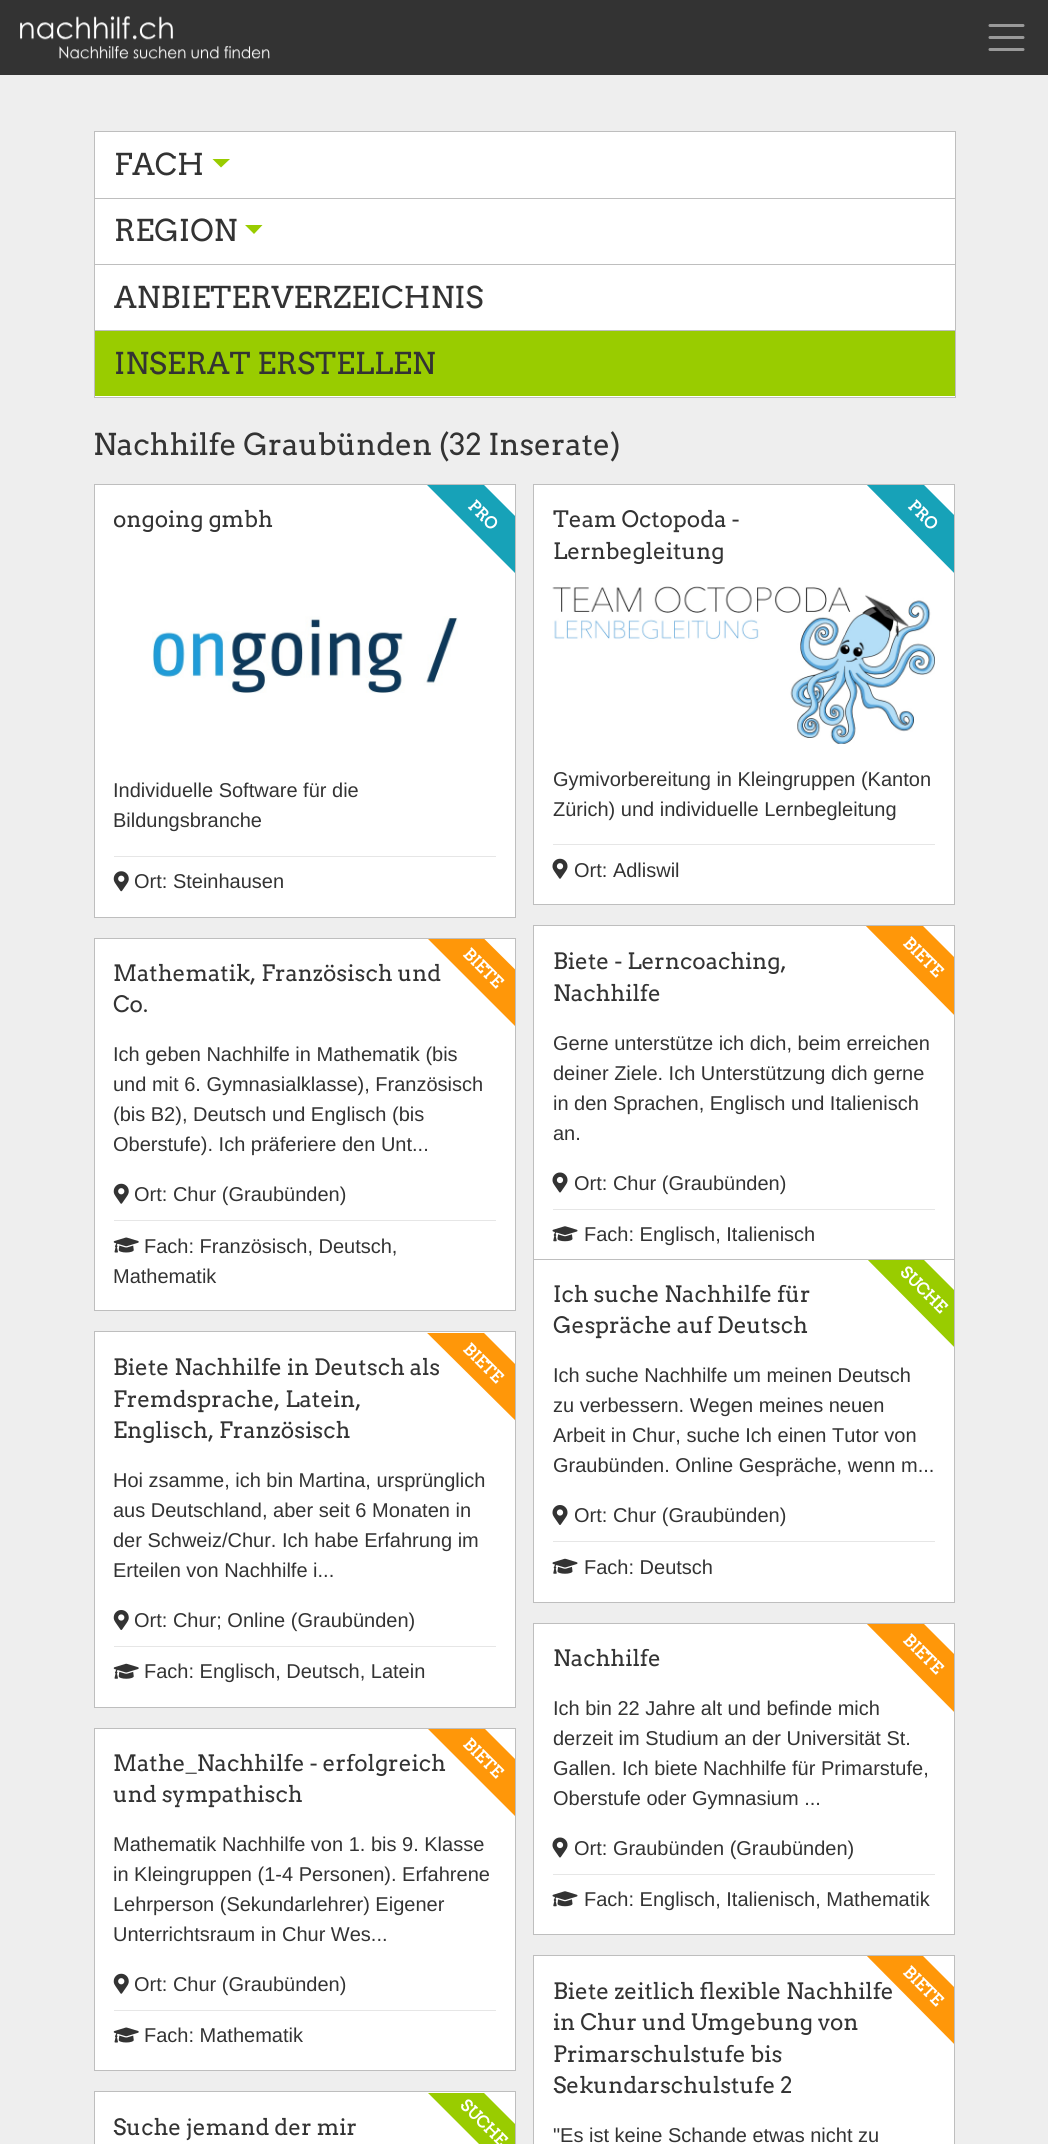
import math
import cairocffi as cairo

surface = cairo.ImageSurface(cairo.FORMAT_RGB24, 1048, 2144)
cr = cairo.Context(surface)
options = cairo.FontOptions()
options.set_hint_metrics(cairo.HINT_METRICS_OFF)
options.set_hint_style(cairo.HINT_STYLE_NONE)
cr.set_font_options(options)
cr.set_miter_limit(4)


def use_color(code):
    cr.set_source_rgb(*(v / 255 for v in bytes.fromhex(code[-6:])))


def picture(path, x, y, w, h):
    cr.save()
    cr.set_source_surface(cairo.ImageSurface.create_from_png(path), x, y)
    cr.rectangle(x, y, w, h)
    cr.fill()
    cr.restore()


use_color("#eeeeee")
cr.paint()
use_color("#333333")
cr.rectangle(0, 0, 1048, 75)
cr.fill()
picture("img1.png", 20, 16, 250, 44)
cr.new_path()
cr.move_to(990, 25.5)
cr.line_to(1023, 25.5)
cr.move_to(990, 37.5)
cr.line_to(1023, 37.5)
cr.move_to(990, 49.5)
cr.line_to(1023, 49.5)
use_color("#999999")
cr.set_line_width(3)
cr.set_line_cap(cairo.LINE_CAP_ROUND)
cr.stroke()
use_color("#ffffff")
cr.rectangle(94.5, 131.5, 861, 266)
cr.fill_preserve()
use_color("#bebebe")
cr.set_line_width(1)
cr.set_line_cap(cairo.LINE_CAP_BUTT)
cr.stroke()
cr.rectangle(95, 198, 860, 1)
cr.fill()
cr.select_font_face("Arvo")
cr.set_font_size(30)
use_color("#333333")
cr.move_to(114, 175)
cr.show_text("FACH")
use_color("#99cc00")
cr.new_path()
cr.move_to(212.5, 159)
cr.line_to(230, 159)
cr.line_to(221, 167.5)
cr.close_path()
cr.fill()
use_color("#bebebe")
cr.rectangle(95, 264, 860, 1)
cr.fill()
use_color("#333333")
cr.move_to(114, 241)
cr.show_text("REGION")
use_color("#99cc00")
cr.new_path()
cr.move_to(245, 225)
cr.line_to(262.5, 225)
cr.line_to(254, 234)
cr.close_path()
cr.fill()
use_color("#bebebe")
cr.rectangle(95, 330, 860, 1)
cr.fill()
use_color("#333333")
cr.move_to(114, 308)
cr.show_text("ANBIETERVERZEICHNIS")
use_color("#99cc00")
cr.rectangle(95, 331, 860, 65)
cr.fill()
use_color("#333333")
cr.move_to(114, 374)
cr.show_text("INSERAT ERSTELLEN")
cr.move_to(93, 455)
cr.show_text("Nachhilfe Graubünden (32 Inserate)")
use_color("#ffffff")
cr.rectangle(94.5, 484.5, 421, 433)
cr.fill_preserve()
use_color("#bebebe")
cr.stroke()
cr.set_font_size(22.5)
use_color("#333333")
cr.move_to(113, 527)
cr.show_text("ongoing gmbh")
picture("img2.png", 152, 616, 306, 77)
cr.select_font_face("Liberation Sans")
cr.set_font_size(20)
cr.move_to(113, 797)
cr.show_text("Individuelle Software für die")
cr.move_to(113, 827)
cr.show_text("Bildungsbranche")
use_color("#e6e6e6")
cr.rectangle(114, 856, 382, 1)
cr.fill()
picture("img3.png", 113, 871, 16, 21)
use_color("#333333")
cr.move_to(134, 888)
cr.show_text("Ort: Steinhausen")
cr.save()
cr.rectangle(413, 485, 102, 103)
cr.clip()
use_color("#17a2b8")
cr.new_path()
cr.move_to(441, 442)
cr.line_to(556, 557)
cr.line_to(528, 586)
cr.line_to(413, 471)
cr.close_path()
cr.fill()
cr.restore()
cr.select_font_face("Arvo", cairo.FONT_SLANT_NORMAL, cairo.FONT_WEIGHT_BOLD)
cr.set_font_size(16)
use_color("#ffffff")
cr.save()
cr.translate(467, 507)
cr.rotate(45 * math.pi / 180)
cr.move_to(0, 0)
cr.show_text("PRO")
cr.restore()
cr.rectangle(533.5, 484.5, 421, 420)
cr.fill_preserve()
use_color("#bebebe")
cr.stroke()
cr.save()
cr.rectangle(851, 485, 103, 103)
cr.clip()
use_color("#17a2b8")
cr.new_path()
cr.move_to(881, 442)
cr.line_to(996, 557)
cr.line_to(967, 586)
cr.line_to(853, 471)
cr.close_path()
cr.fill()
cr.restore()
use_color("#ffffff")
cr.save()
cr.translate(907, 507)
cr.rotate(45 * math.pi / 180)
cr.move_to(0, 0)
cr.show_text("PRO")
cr.restore()
cr.select_font_face("Arvo")
cr.set_font_size(22.5)
use_color("#333333")
cr.move_to(553, 527)
cr.show_text("Team Octopoda -")
cr.move_to(553, 559)
cr.show_text("Lernbegleitung")
picture("img4.png", 552, 586, 383, 158)
cr.select_font_face("Liberation Sans")
cr.set_font_size(20)
cr.move_to(553, 786)
cr.show_text("Gymivorbereitung in Kleingruppen (Kanton")
cr.move_to(553, 816)
cr.show_text("Zürich) und individuelle Lernbegleitung")
use_color("#e6e6e6")
cr.rectangle(553, 844, 382, 1)
cr.fill()
picture("img5.png", 552, 858, 16, 21)
use_color("#333333")
cr.move_to(574, 877)
cr.show_text("Ort: Adliswil")
use_color("#ffffff")
cr.rectangle(94.5, 938.5, 421, 372)
cr.fill_preserve()
use_color("#bebebe")
cr.stroke()
cr.select_font_face("Arvo")
cr.set_font_size(22.5)
use_color("#333333")
cr.move_to(113, 981)
cr.show_text("Mathematik, Französisch und")
cr.move_to(113, 1012)
cr.show_text("Co.")
cr.select_font_face("Liberation Sans")
cr.set_font_size(20)
cr.move_to(113, 1061)
cr.show_text("Ich geben Nachhilfe in Mathematik (bis")
cr.move_to(113, 1091)
cr.show_text("und mit 6. Gymnasialklasse), Französisch")
cr.move_to(113, 1121)
cr.show_text("(bis B2), Deutsch und Englisch (bis")
cr.move_to(113, 1151)
cr.show_text("Oberstufe). Ich präferiere den Unt...")
picture("img6.png", 113, 1183, 16, 21)
cr.move_to(134, 1201)
cr.show_text("Ort: Chur (Graubünden)")
use_color("#e6e6e6")
cr.rectangle(114, 1220, 382, 1)
cr.fill()
picture("img7.png", 113, 1237, 26, 16)
use_color("#333333")
cr.move_to(144, 1253)
cr.show_text("Fach: Französisch, Deutsch,")
cr.move_to(113, 1283)
cr.show_text("Mathematik")
cr.save()
cr.rectangle(413, 939, 102, 102)
cr.clip()
use_color("#ff9709")
cr.new_path()
cr.move_to(441, 896)
cr.line_to(556, 1010)
cr.line_to(528, 1039)
cr.line_to(413, 924)
cr.close_path()
cr.fill()
cr.restore()
cr.select_font_face("Arvo", cairo.FONT_SLANT_NORMAL, cairo.FONT_WEIGHT_BOLD)
cr.set_font_size(16)
use_color("#ffffff")
cr.save()
cr.translate(462, 955)
cr.rotate(45 * math.pi / 180)
cr.move_to(0, 0)
cr.show_text("BIETE")
cr.restore()
cr.rectangle(534, 926, 420, 333)
cr.fill()
cr.rectangle(533.5, 925.5, 421, 344)
use_color("#bebebe")
cr.stroke()
cr.save()
cr.rectangle(851, 926, 103, 103)
cr.clip()
use_color("#ff9709")
cr.new_path()
cr.move_to(881, 884)
cr.line_to(996, 999)
cr.line_to(967, 1028)
cr.line_to(853, 913)
cr.close_path()
cr.fill()
cr.restore()
use_color("#ffffff")
cr.save()
cr.translate(902, 944)
cr.rotate(45 * math.pi / 180)
cr.move_to(0, 0)
cr.show_text("BIETE")
cr.restore()
cr.select_font_face("Arvo")
cr.set_font_size(22.5)
use_color("#333333")
cr.move_to(553, 969)
cr.show_text("Biete - Lerncoaching,")
cr.move_to(553, 1001)
cr.show_text("Nachhilfe")
cr.select_font_face("Liberation Sans")
cr.set_font_size(20)
cr.move_to(553, 1050)
cr.show_text("Gerne unterstütze ich dich, beim erreichen")
cr.move_to(553, 1080)
cr.show_text("deiner Ziele. Ich Unterstützung dich gerne")
cr.move_to(553, 1110)
cr.show_text("in den Sprachen, Englisch und Italienisch")
cr.move_to(553, 1140)
cr.show_text("an.")
picture("img8.png", 552, 1172, 16, 21)
cr.move_to(574, 1190)
cr.show_text("Ort: Chur (Graubünden)")
use_color("#e6e6e6")
cr.rectangle(553, 1209, 382, 1)
cr.fill()
picture("img9.png", 552, 1226, 26, 16)
use_color("#333333")
cr.move_to(584, 1241)
cr.show_text("Fach: Englisch, Italienisch")
use_color("#ffffff")
cr.rectangle(94.5, 1331.5, 421, 376)
cr.fill_preserve()
use_color("#bebebe")
cr.stroke()
cr.select_font_face("Arvo")
cr.set_font_size(22.5)
use_color("#333333")
cr.move_to(113, 1375)
cr.show_text("Biete Nachhilfe in Deutsch als")
cr.save()
cr.rectangle(413, 1333, 102, 102)
cr.clip()
use_color("#ff9709")
cr.new_path()
cr.move_to(441, 1290)
cr.line_to(556, 1405)
cr.line_to(528, 1433)
cr.line_to(413, 1319)
cr.close_path()
cr.fill()
cr.restore()
cr.select_font_face("Arvo", cairo.FONT_SLANT_NORMAL, cairo.FONT_WEIGHT_BOLD)
cr.set_font_size(16)
use_color("#ffffff")
cr.save()
cr.translate(462, 1350)
cr.rotate(45 * math.pi / 180)
cr.move_to(0, 0)
cr.show_text("BIETE")
cr.restore()
cr.select_font_face("Arvo")
cr.set_font_size(22.5)
use_color("#333333")
cr.move_to(113, 1407)
cr.show_text("Fremdsprache, Latein,")
cr.move_to(113, 1438)
cr.show_text("Englisch, Französisch")
cr.select_font_face("Liberation Sans")
cr.set_font_size(20)
cr.move_to(113, 1487)
cr.show_text("Hoi zsamme, ich bin Martina, ursprünglich")
cr.move_to(113, 1517)
cr.show_text("aus Deutschland, aber seit 6 Monaten in")
cr.move_to(113, 1547)
cr.show_text("der Schweiz/Chur. Ich habe Erfahrung im")
cr.move_to(113, 1577)
cr.show_text("Erteilen von Nachhilfe i...")
picture("img10.png", 113, 1610, 16, 20)
cr.move_to(134, 1627)
cr.show_text("Ort: Chur; Online (Graubünden)")
use_color("#e6e6e6")
cr.rectangle(114, 1646, 382, 1)
cr.fill()
picture("img11.png", 113, 1663, 26, 16)
use_color("#333333")
cr.move_to(144, 1678)
cr.show_text("Fach: Englisch, Deutsch, Latein")
use_color("#ffffff")
cr.rectangle(533.5, 1259.5, 421, 343)
cr.fill_preserve()
use_color("#bebebe")
cr.stroke()
cr.save()
cr.rectangle(851, 1260, 103, 103)
cr.clip()
use_color("#99cc00")
cr.new_path()
cr.move_to(881, 1217)
cr.line_to(996, 1332)
cr.line_to(967, 1360)
cr.line_to(853, 1245)
cr.close_path()
cr.fill()
cr.restore()
cr.select_font_face("Arvo", cairo.FONT_SLANT_NORMAL, cairo.FONT_WEIGHT_BOLD)
cr.set_font_size(16)
use_color("#ffffff")
cr.save()
cr.translate(899, 1273)
cr.rotate(45 * math.pi / 180)
cr.move_to(0, 0)
cr.show_text("SUCHE")
cr.restore()
cr.select_font_face("Arvo")
cr.set_font_size(22.5)
use_color("#333333")
cr.move_to(553, 1302)
cr.show_text("Ich suche Nachhilfe für")
cr.move_to(553, 1333)
cr.show_text("Gespräche auf Deutsch")
cr.select_font_face("Liberation Sans")
cr.set_font_size(20)
cr.move_to(553, 1382)
cr.show_text("Ich suche Nachhilfe um meinen Deutsch")
cr.move_to(553, 1412)
cr.show_text("zu verbessern. Wegen meines neuen")
cr.move_to(553, 1442)
cr.show_text("Arbeit in Chur, suche Ich einen Tutor von")
cr.move_to(553, 1472)
cr.show_text("Graubünden. Online Gespräche, wenn m...")
picture("img12.png", 552, 1505, 16, 20)
cr.move_to(574, 1522)
cr.show_text("Ort: Chur (Graubünden)")
use_color("#e6e6e6")
cr.rectangle(553, 1541, 382, 1)
cr.fill()
picture("img13.png", 552, 1558, 26, 16)
use_color("#333333")
cr.move_to(584, 1574)
cr.show_text("Fach: Deutsch")
use_color("#ffffff")
cr.rectangle(94.5, 1728.5, 421, 342)
cr.fill_preserve()
use_color("#bebebe")
cr.stroke()
cr.select_font_face("Arvo")
cr.set_font_size(22.5)
use_color("#333333")
cr.move_to(113, 1771)
cr.show_text("Mathe_Nachhilfe - erfolgreich")
cr.save()
cr.rectangle(413, 1729, 102, 102)
cr.clip()
use_color("#ff9709")
cr.new_path()
cr.move_to(441, 1685)
cr.line_to(556, 1800)
cr.line_to(528, 1829)
cr.line_to(413, 1714)
cr.close_path()
cr.fill()
cr.restore()
cr.select_font_face("Arvo", cairo.FONT_SLANT_NORMAL, cairo.FONT_WEIGHT_BOLD)
cr.set_font_size(16)
use_color("#ffffff")
cr.save()
cr.translate(462, 1745)
cr.rotate(45 * math.pi / 180)
cr.move_to(0, 0)
cr.show_text("BIETE")
cr.restore()
cr.select_font_face("Arvo")
cr.set_font_size(22.5)
use_color("#333333")
cr.move_to(113, 1802)
cr.show_text("und sympathisch")
cr.select_font_face("Liberation Sans")
cr.set_font_size(20)
cr.move_to(113, 1851)
cr.show_text("Mathematik Nachhilfe von 1. bis 9. Klasse")
cr.move_to(113, 1881)
cr.show_text("in Kleingruppen (1-4 Personen). Erfahrene")
cr.move_to(113, 1911)
cr.show_text("Lehrperson (Sekundarlehrer) Eigener")
cr.move_to(113, 1941)
cr.show_text("Unterrichtsraum in Chur Wes...")
picture("img6.png", 113, 1973, 16, 21)
cr.move_to(134, 1991)
cr.show_text("Ort: Chur (Graubünden)")
use_color("#e6e6e6")
cr.rectangle(114, 2010, 382, 1)
cr.fill()
picture("img7.png", 113, 2027, 26, 16)
use_color("#333333")
cr.move_to(144, 2042)
cr.show_text("Fach: Mathematik")
use_color("#ffffff")
cr.rectangle(533.5, 1623.5, 421, 311)
cr.fill_preserve()
use_color("#bebebe")
cr.stroke()
use_color("#333333")
cr.move_to(553, 1715)
cr.show_text("Ich bin 22 Jahre alt und befinde mich")
cr.save()
cr.rectangle(851, 1624, 103, 102)
cr.clip()
use_color("#ff9709")
cr.new_path()
cr.move_to(881, 1581)
cr.line_to(996, 1696)
cr.line_to(967, 1725)
cr.line_to(853, 1610)
cr.close_path()
cr.fill()
cr.restore()
cr.select_font_face("Arvo", cairo.FONT_SLANT_NORMAL, cairo.FONT_WEIGHT_BOLD)
cr.set_font_size(16)
use_color("#ffffff")
cr.save()
cr.translate(902, 1641)
cr.rotate(45 * math.pi / 180)
cr.move_to(0, 0)
cr.show_text("BIETE")
cr.restore()
cr.select_font_face("Arvo")
cr.set_font_size(22.5)
use_color("#333333")
cr.move_to(553, 1666)
cr.show_text("Nachhilfe")
cr.select_font_face("Liberation Sans")
cr.set_font_size(20)
cr.move_to(553, 1745)
cr.show_text("derzeit im Studium an der Universität St.")
cr.move_to(553, 1775)
cr.show_text("Gallen. Ich biete Nachhilfe für Primarstufe,")
cr.move_to(553, 1805)
cr.show_text("Oberstufe oder Gymnasium ...")
picture("img8.png", 552, 1837, 16, 21)
cr.move_to(574, 1855)
cr.show_text("Ort: Graubünden (Graubünden)")
use_color("#e6e6e6")
cr.rectangle(553, 1874, 382, 1)
cr.fill()
picture("img9.png", 552, 1891, 26, 16)
use_color("#333333")
cr.move_to(584, 1906)
cr.show_text("Fach: Englisch, Italienisch, Mathematik")
use_color("#ffffff")
cr.rectangle(94.5, 2091.5, 421, 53)
cr.fill_preserve()
use_color("#bebebe")
cr.stroke()
cr.select_font_face("Arvo")
cr.set_font_size(22.5)
use_color("#333333")
cr.move_to(113, 2135)
cr.show_text("Suche jemand der mir")
cr.save()
cr.rectangle(413, 2093, 102, 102)
cr.clip()
use_color("#99cc00")
cr.new_path()
cr.move_to(441, 2050)
cr.line_to(556, 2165)
cr.line_to(528, 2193)
cr.line_to(413, 2078)
cr.close_path()
cr.fill()
cr.restore()
cr.select_font_face("Arvo", cairo.FONT_SLANT_NORMAL, cairo.FONT_WEIGHT_BOLD)
cr.set_font_size(16)
use_color("#ffffff")
cr.save()
cr.translate(459, 2106)
cr.rotate(45 * math.pi / 180)
cr.move_to(0, 0)
cr.show_text("SUCHE")
cr.restore()
cr.rectangle(533.5, 1955.5, 421, 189)
cr.fill_preserve()
use_color("#bebebe")
cr.stroke()
cr.select_font_face("Arvo")
cr.set_font_size(22.5)
use_color("#333333")
cr.move_to(553, 1999)
cr.show_text("Biete zeitlich flexible Nachhilfe")
cr.move_to(553, 2030)
cr.show_text("in Chur und Umgebung von")
cr.move_to(553, 2062)
cr.show_text("Primarschulstufe bis")
cr.move_to(553, 2093)
cr.show_text("Sekundarschulstufe 2")
cr.select_font_face("Liberation Sans")
cr.set_font_size(20)
cr.move_to(553, 2142)
cr.show_text("\"Es ist keine Schande etwas nicht zu")
cr.save()
cr.rectangle(851, 1956, 103, 103)
cr.clip()
use_color("#ff9709")
cr.new_path()
cr.move_to(881, 1914)
cr.line_to(996, 2029)
cr.line_to(967, 2057)
cr.line_to(853, 1942)
cr.close_path()
cr.fill()
cr.restore()
cr.select_font_face("Arvo", cairo.FONT_SLANT_NORMAL, cairo.FONT_WEIGHT_BOLD)
cr.set_font_size(16)
use_color("#ffffff")
cr.save()
cr.translate(902, 1973)
cr.rotate(45 * math.pi / 180)
cr.move_to(0, 0)
cr.show_text("BIETE")
cr.restore()
surface.write_to_png("result.png")
